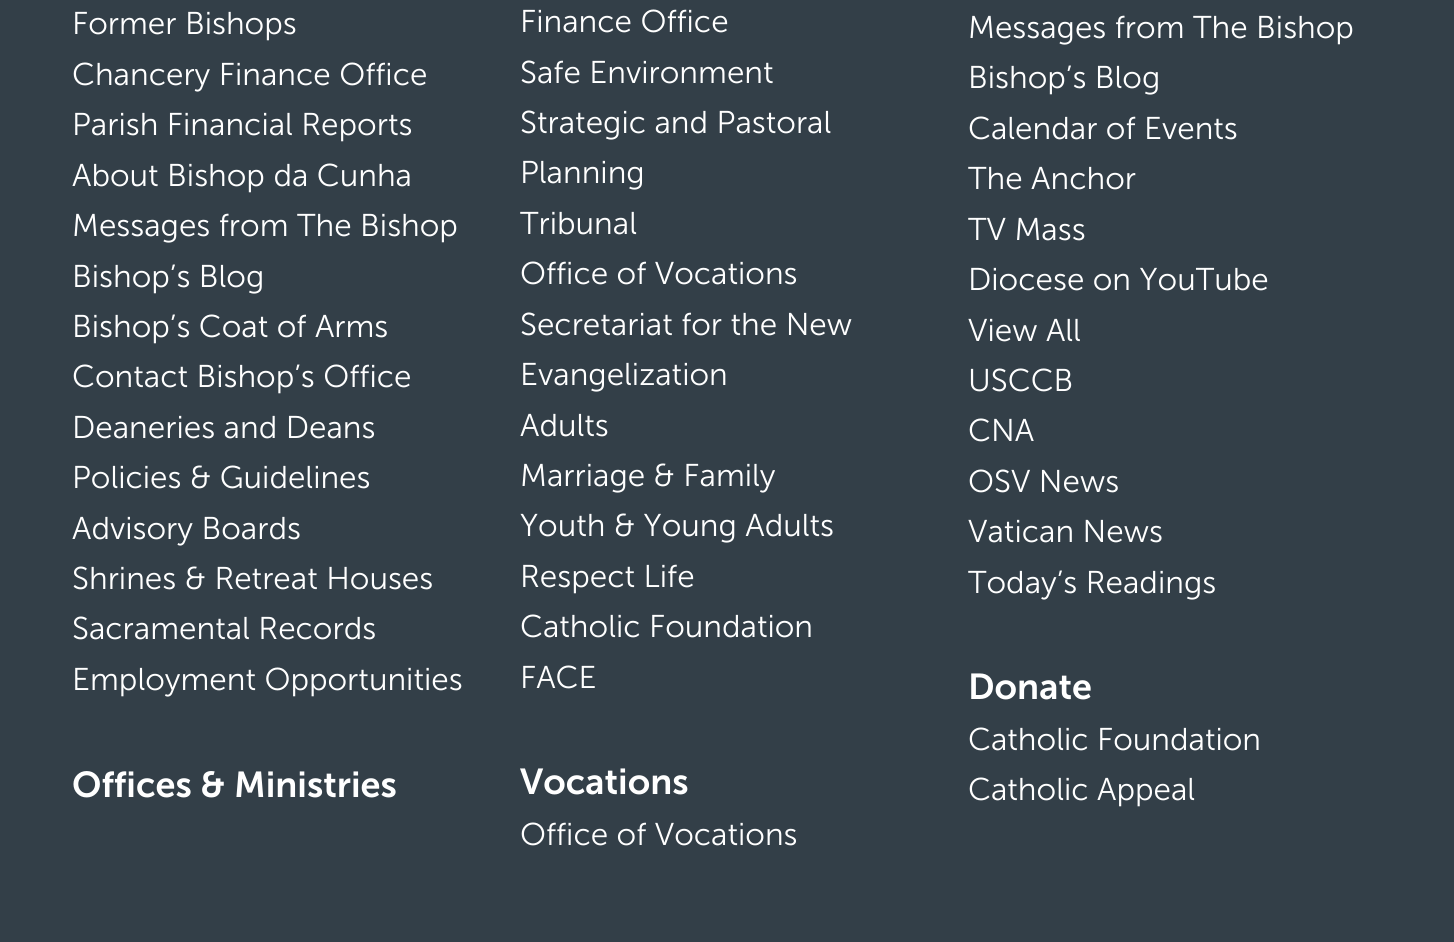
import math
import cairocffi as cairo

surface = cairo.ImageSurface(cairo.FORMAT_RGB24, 1454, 942)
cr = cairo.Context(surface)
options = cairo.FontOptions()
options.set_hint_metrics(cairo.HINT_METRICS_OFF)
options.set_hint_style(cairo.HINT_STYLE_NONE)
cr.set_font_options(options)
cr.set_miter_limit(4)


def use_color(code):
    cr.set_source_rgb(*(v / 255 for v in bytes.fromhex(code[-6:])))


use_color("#333f48")
cr.paint()
cr.select_font_face("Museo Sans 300 Light")
cr.set_font_size(31.5)
use_color("#ffffff")
cr.move_to(520, 32)
cr.show_text("Finance Office")
cr.move_to(520, 83)
cr.show_text("Safe Environment")
cr.move_to(520, 133)
cr.show_text("Strategic and Pastoral")
cr.move_to(520, 183)
cr.show_text("Planning")
cr.move_to(520, 234)
cr.show_text("Tribunal")
cr.move_to(520, 284)
cr.show_text("Office of Vocations")
cr.move_to(520, 335)
cr.show_text("Secretariat for the New")
cr.move_to(520, 385)
cr.show_text("Evangelization")
cr.move_to(520, 436)
cr.show_text("Adults")
cr.move_to(520, 486)
cr.show_text("Marriage & Family")
cr.move_to(520, 536)
cr.show_text("Youth & Young Adults")
cr.move_to(520, 587)
cr.show_text("Respect Life")
cr.move_to(520, 637)
cr.show_text("Catholic Foundation")
cr.move_to(520, 688)
cr.show_text("FACE")
cr.select_font_face("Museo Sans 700 SemiBold")
cr.set_font_size(36)
cr.move_to(72, 797)
cr.show_text("Offices & Ministries")
cr.select_font_face("Museo Sans 300 Light")
cr.set_font_size(31.5)
cr.move_to(72, 34)
cr.show_text("Former Bishops")
cr.move_to(72, 85)
cr.show_text("Chancery Finance Office")
cr.move_to(72, 135)
cr.show_text("Parish Financial Reports")
cr.move_to(72, 186)
cr.show_text("About Bishop da Cunha")
cr.move_to(72, 236)
cr.show_text("Messages from The Bishop")
cr.move_to(72, 287)
cr.show_text("Bishop’s Blog")
cr.move_to(72, 337)
cr.show_text("Bishop’s Coat of Arms")
cr.move_to(72, 387)
cr.show_text("Contact Bishop’s Office")
cr.move_to(72, 438)
cr.show_text("Deaneries and Deans")
cr.move_to(72, 488)
cr.show_text("Policies & Guidelines")
cr.move_to(72, 539)
cr.show_text("Advisory Boards")
cr.move_to(72, 589)
cr.show_text("Shrines & Retreat Houses")
cr.move_to(72, 639)
cr.show_text("Sacramental Records")
cr.move_to(72, 690)
cr.show_text("Employment Opportunities")
cr.move_to(968, 38)
cr.show_text("Messages from The Bishop")
cr.move_to(968, 88)
cr.show_text("Bishop’s Blog")
cr.move_to(968, 139)
cr.show_text("Calendar of Events")
cr.move_to(968, 189)
cr.show_text("The Anchor")
cr.move_to(968, 240)
cr.show_text("TV Mass")
cr.move_to(968, 290)
cr.show_text("Diocese on YouTube")
cr.move_to(968, 341)
cr.show_text("View All")
cr.move_to(968, 391)
cr.show_text("USCCB")
cr.move_to(968, 441)
cr.show_text("CNA")
cr.move_to(968, 492)
cr.show_text("OSV News")
cr.move_to(968, 542)
cr.show_text("Vatican News")
cr.move_to(968, 593)
cr.show_text("Today’s Readings")
cr.select_font_face("Museo Sans 700 SemiBold")
cr.set_font_size(36)
cr.move_to(520, 794)
cr.show_text("Vocations")
cr.select_font_face("Museo Sans 300 Light")
cr.set_font_size(31.5)
cr.move_to(520, 845)
cr.show_text("Office of Vocations")
cr.select_font_face("Museo Sans 700 SemiBold")
cr.set_font_size(36)
cr.move_to(968, 699)
cr.show_text("Donate")
cr.select_font_face("Museo Sans 300 Light")
cr.set_font_size(31.5)
cr.move_to(968, 750)
cr.show_text("Catholic Foundation")
cr.move_to(968, 800)
cr.show_text("Catholic Appeal")
surface.write_to_png("result.png")
